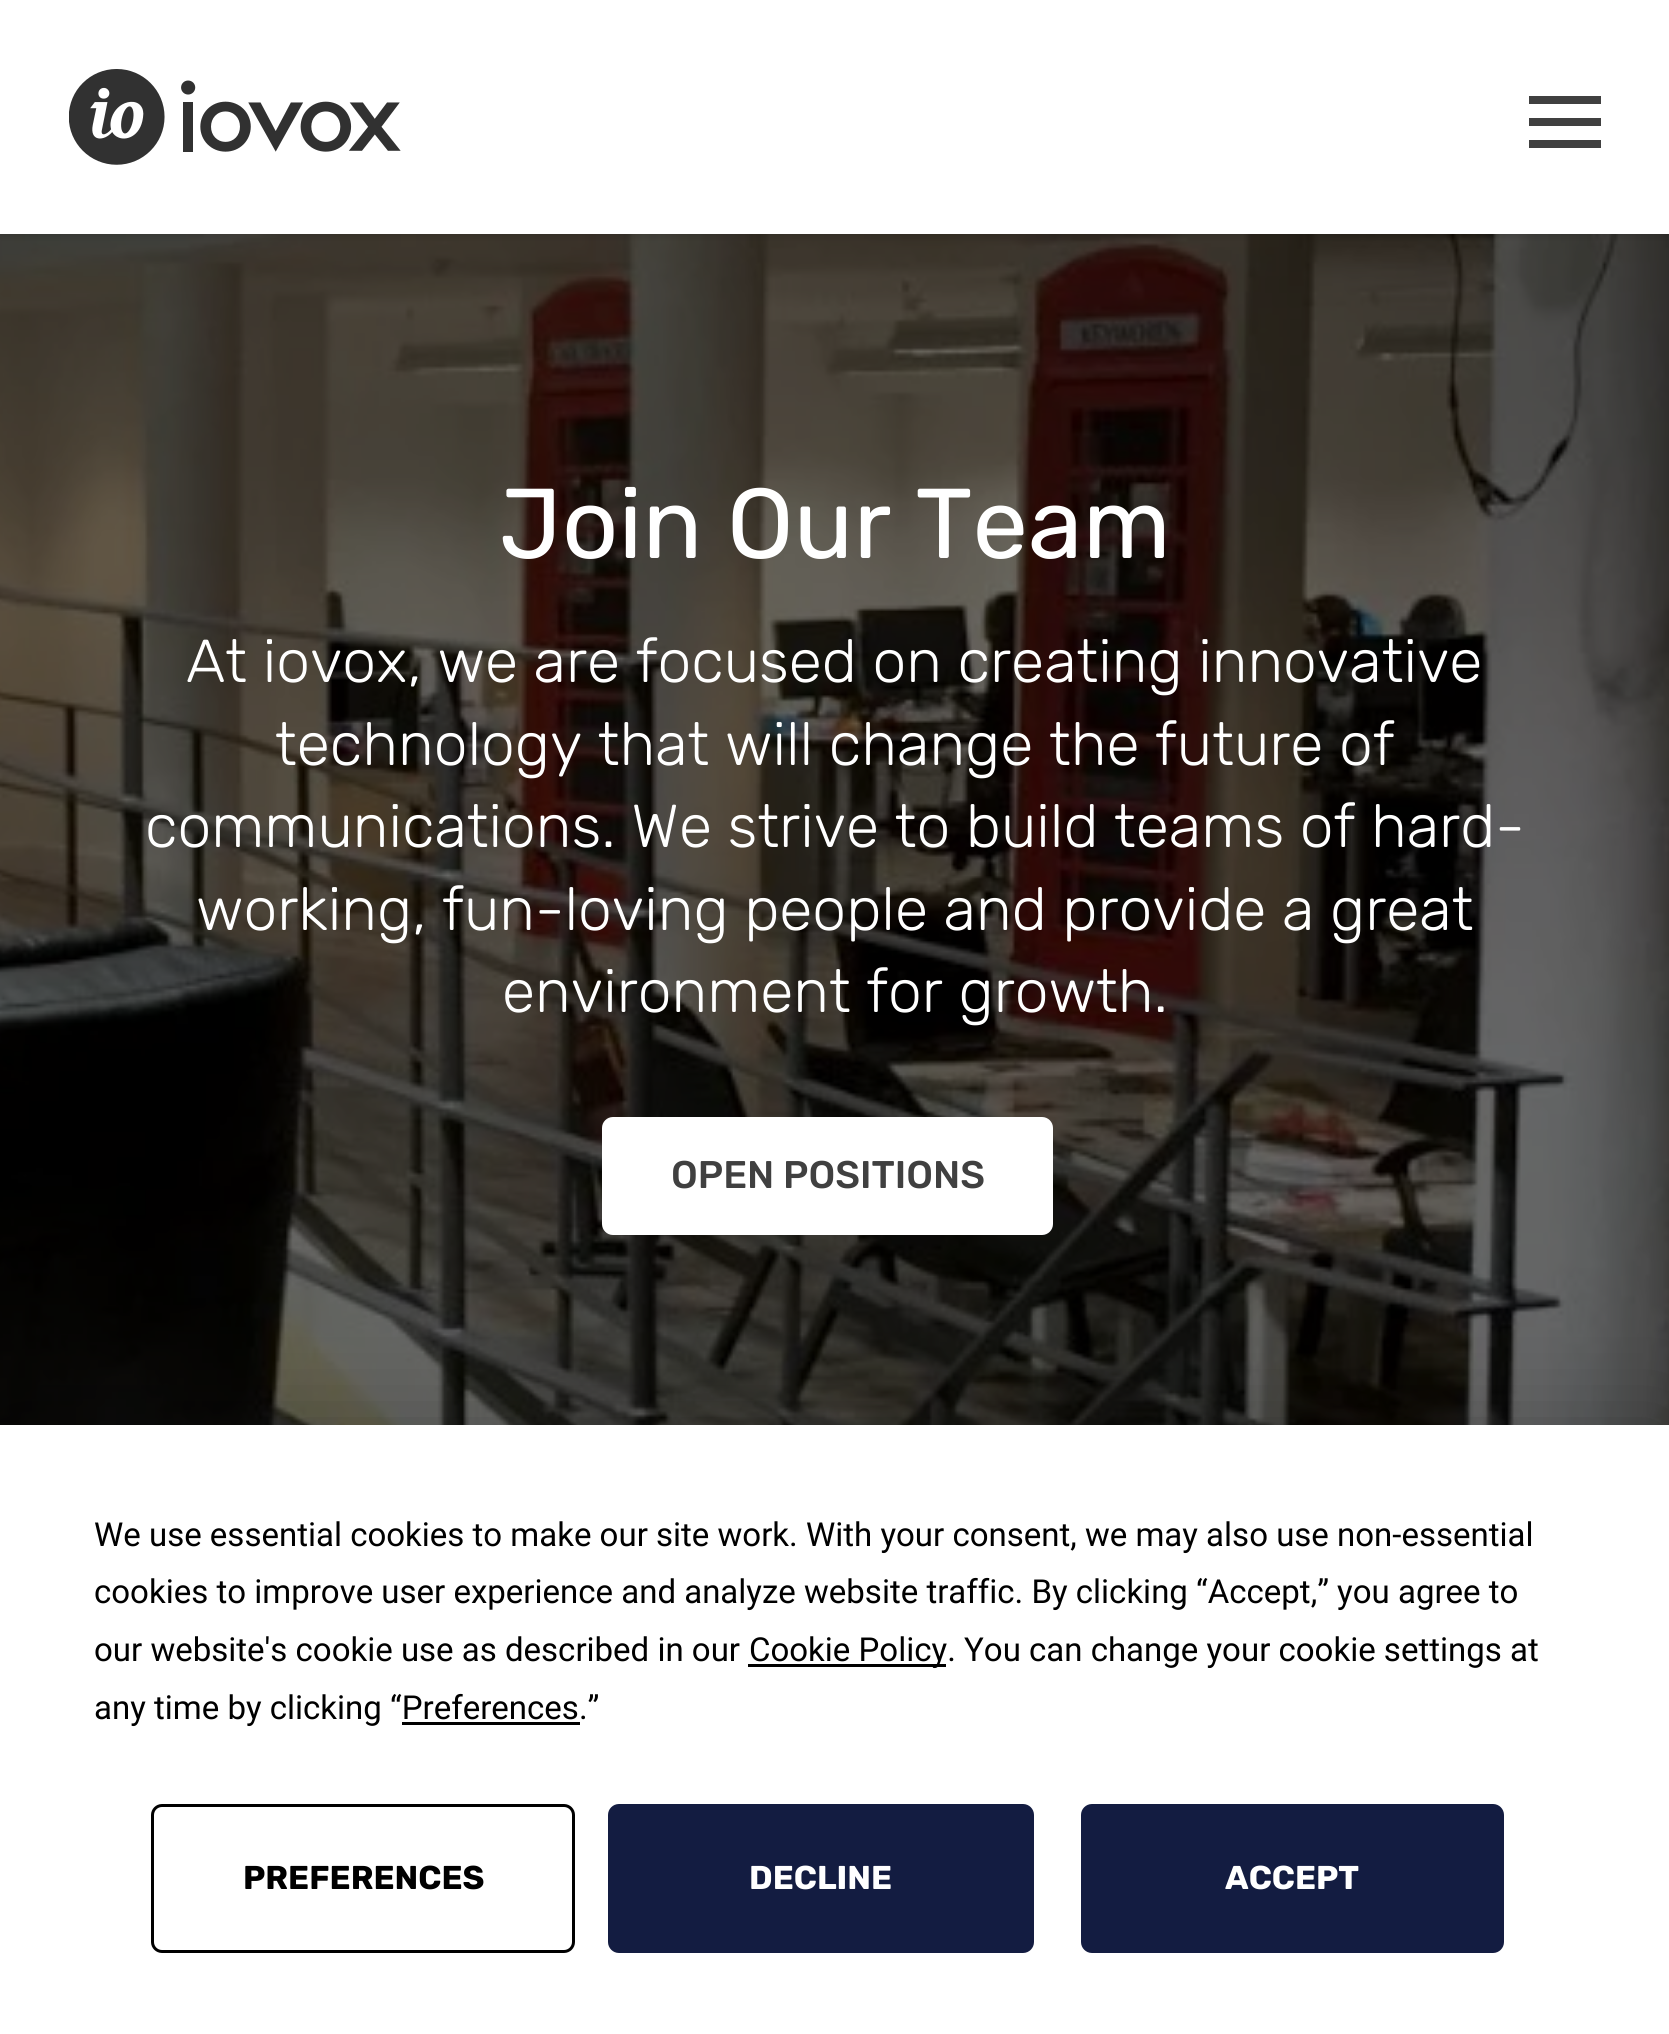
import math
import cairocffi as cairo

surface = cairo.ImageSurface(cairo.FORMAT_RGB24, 1669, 2034)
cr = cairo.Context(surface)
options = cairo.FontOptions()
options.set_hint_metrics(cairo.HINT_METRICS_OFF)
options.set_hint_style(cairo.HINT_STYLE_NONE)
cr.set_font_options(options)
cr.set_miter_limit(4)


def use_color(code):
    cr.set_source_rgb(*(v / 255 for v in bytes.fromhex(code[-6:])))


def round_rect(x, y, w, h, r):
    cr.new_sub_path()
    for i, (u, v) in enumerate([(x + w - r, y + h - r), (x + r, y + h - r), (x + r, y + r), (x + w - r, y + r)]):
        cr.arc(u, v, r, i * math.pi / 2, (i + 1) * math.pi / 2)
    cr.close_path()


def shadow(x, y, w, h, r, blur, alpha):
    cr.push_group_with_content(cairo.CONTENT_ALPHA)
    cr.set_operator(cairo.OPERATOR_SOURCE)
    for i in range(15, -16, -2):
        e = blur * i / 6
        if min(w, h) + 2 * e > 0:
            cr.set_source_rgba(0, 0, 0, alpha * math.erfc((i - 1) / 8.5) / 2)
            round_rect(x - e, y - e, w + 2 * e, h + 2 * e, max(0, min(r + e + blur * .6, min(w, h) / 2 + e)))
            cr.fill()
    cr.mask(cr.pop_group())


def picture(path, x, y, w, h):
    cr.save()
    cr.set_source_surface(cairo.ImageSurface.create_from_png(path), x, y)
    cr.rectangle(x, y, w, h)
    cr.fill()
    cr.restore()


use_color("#ffffff")
cr.paint()
picture("img2.png", 0, 234, 1669, 1191)
use_color("#000000")
shadow(0, 3, 1669, 234, 0, 3, 0.1)
use_color("#ffffff")
cr.rectangle(0, 0, 1669, 234)
cr.fill()
picture("img1.png", 69, 69, 332, 96)
use_color("#404040")
cr.rectangle(1529, 118, 72, 8)
cr.fill()
cr.rectangle(1529, 96, 72, 8)
cr.fill()
cr.rectangle(1529, 140, 72, 8)
cr.fill()
cr.select_font_face("Rubik")
cr.set_font_size(99)
use_color("#ffffff")
cr.move_to(499, 558)
cr.show_text("Join Our Team")
cr.select_font_face("Rubik Light")
cr.set_font_size(60.5)
cr.move_to(186, 682)
cr.show_text("At iovox, we are focused on creating innovative")
cr.move_to(275, 765)
cr.show_text("technology that will change the future of")
cr.move_to(145, 847)
cr.show_text("communications. We strive to build teams of hard-")
cr.move_to(196, 930)
cr.show_text("working, fun-loving people and provide a great")
cr.move_to(502, 1012)
cr.show_text("environment for growth.")
round_rect(602, 1117, 451, 118, 11)
cr.fill()
cr.select_font_face("Rubik Medium")
cr.set_font_size(38.5)
use_color("#404040")
cr.move_to(671, 1188)
cr.show_text("OPEN POSITIONS")
use_color("#000000")
shadow(0, 1425, 1669, 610, 0, 48, 0.25)
use_color("#ffffff")
cr.rectangle(0, 1425, 1669, 609)
cr.fill()
cr.select_font_face("Roboto")
cr.set_font_size(33)
use_color("#000000")
cr.move_to(94, 1546)
cr.show_text("We use essential cookies to make our site work. With your consent, we may also use non-essential")
cr.move_to(94, 1603)
cr.show_text("cookies to improve user experience and analyze website traffic. By clicking “Accept,” you agree to")
cr.move_to(94, 1661)
cr.show_text("our website's cookie use as described in our")
cr.rectangle(748, 1664, 198, 3)
cr.fill()
cr.move_to(749, 1661)
cr.show_text("Cookie Policy. You can change your cookie settings at")
cr.move_to(94, 1719)
cr.show_text("any time by clicking “Preferences.”")
cr.rectangle(402, 1722, 178, 3)
cr.fill()
round_rect(152.5, 1805.5, 421, 146, 9.5)
cr.set_line_width(3)
cr.stroke()
cr.select_font_face("Rubik", cairo.FONT_SLANT_NORMAL, cairo.FONT_WEIGHT_BOLD)
cr.move_to(243, 1889)
cr.show_text("PREFERENCES")
use_color("#131c41")
round_rect(608, 1804, 426, 149, 11)
cr.fill()
use_color("#ffffff")
cr.move_to(749, 1889)
cr.show_text("DECLINE")
use_color("#131c41")
round_rect(1081, 1804, 423, 149, 11)
cr.fill()
use_color("#ffffff")
cr.move_to(1225, 1889)
cr.show_text("ACCEPT")
surface.write_to_png("result.png")
